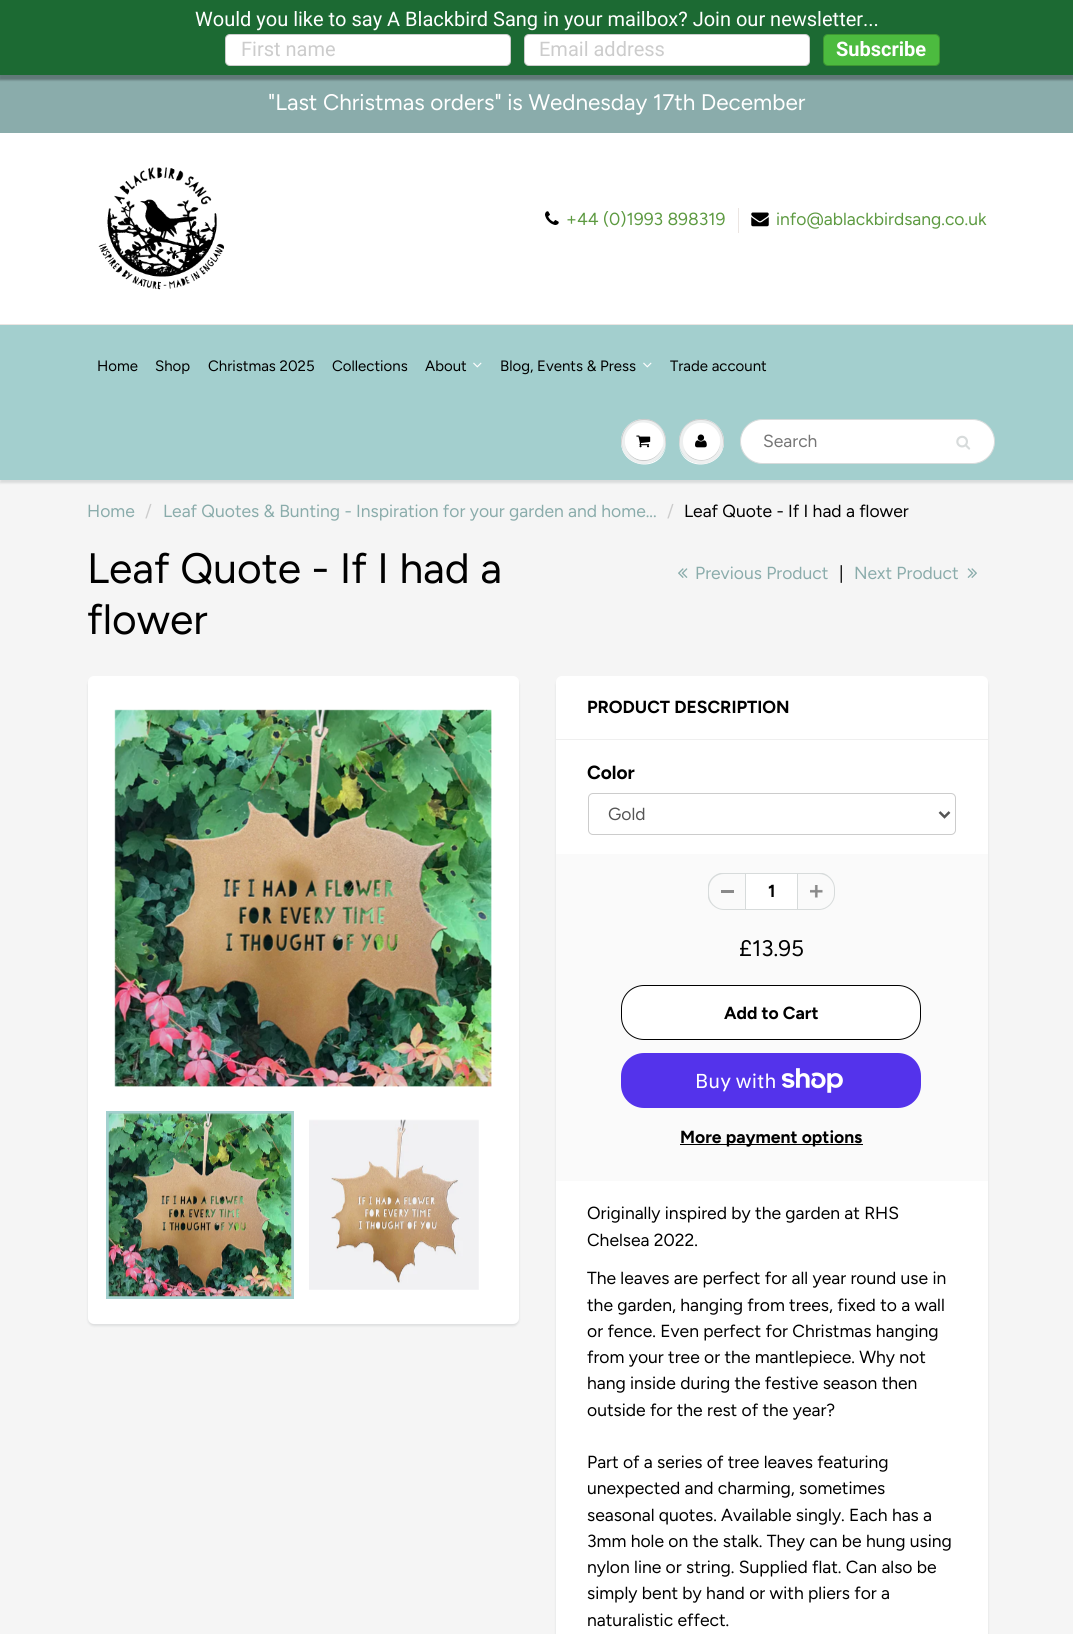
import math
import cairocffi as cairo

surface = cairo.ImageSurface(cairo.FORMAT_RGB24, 1073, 1634)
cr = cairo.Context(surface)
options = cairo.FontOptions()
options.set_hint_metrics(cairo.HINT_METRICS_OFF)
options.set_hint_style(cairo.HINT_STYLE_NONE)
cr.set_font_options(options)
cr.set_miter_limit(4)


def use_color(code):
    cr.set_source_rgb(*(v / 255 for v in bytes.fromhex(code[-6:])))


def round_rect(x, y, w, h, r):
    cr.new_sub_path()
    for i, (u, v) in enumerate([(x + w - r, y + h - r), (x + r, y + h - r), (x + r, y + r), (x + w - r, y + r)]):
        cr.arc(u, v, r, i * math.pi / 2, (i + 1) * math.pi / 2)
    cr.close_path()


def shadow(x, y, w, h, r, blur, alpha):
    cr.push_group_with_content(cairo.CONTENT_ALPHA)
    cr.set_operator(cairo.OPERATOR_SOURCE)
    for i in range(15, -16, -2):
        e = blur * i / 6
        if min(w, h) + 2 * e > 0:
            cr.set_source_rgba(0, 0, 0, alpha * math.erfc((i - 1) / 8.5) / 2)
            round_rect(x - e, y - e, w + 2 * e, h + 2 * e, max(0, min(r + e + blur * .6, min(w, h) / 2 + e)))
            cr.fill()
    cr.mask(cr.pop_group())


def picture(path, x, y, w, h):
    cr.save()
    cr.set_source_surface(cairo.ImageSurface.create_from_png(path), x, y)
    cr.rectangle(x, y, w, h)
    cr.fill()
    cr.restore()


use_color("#ffffff")
cr.paint()
use_color("#8aacab")
cr.rectangle(0, 75, 1073, 58)
cr.fill()
use_color("#000000")
shadow(-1, 3, 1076, 77, 0, 1, 0.3)
use_color("#1c6a33")
cr.rectangle(0, 0, 1073, 75)
cr.fill()
cr.select_font_face("Roboto")
cr.set_font_size(20)
use_color("#ffffff")
cr.move_to(195, 26)
cr.show_text("Would you like to say A Blackbird Sang in your mailbox? Join our newsletter...")
round_rect(225, 34, 286, 32, 5)
cr.fill()
round_rect(225.5, 34.5, 285, 31, 4.5)
cr.set_source_rgba(0, 0, 0, 0.2)
cr.set_line_width(1)
cr.stroke()
use_color("#cccccc")
cr.move_to(241, 56)
cr.show_text("First name")
use_color("#ffffff")
round_rect(524, 34, 286, 32, 5)
cr.fill()
round_rect(524.5, 34.5, 285, 31, 4.5)
cr.set_source_rgba(0, 0, 0, 0.2)
cr.stroke()
use_color("#cccccc")
cr.move_to(539, 56)
cr.show_text("Email address")
use_color("#4cbb3f")
round_rect(823, 34, 117, 32, 5)
cr.fill()
round_rect(823.5, 34.5, 116, 31, 4.5)
cr.set_source_rgba(0, 0, 0, 0.2)
cr.stroke()
cr.select_font_face("Roboto", cairo.FONT_SLANT_NORMAL, cairo.FONT_WEIGHT_BOLD)
use_color("#ffffff")
cr.move_to(836, 56)
cr.show_text("Subscribe")
cr.select_font_face("Figtree")
cr.set_font_size(22.5)
cr.move_to(268, 110)
cr.show_text("\"Last Christmas orders\" is Wednesday 17th December")
picture("img1.png", 98, 167, 126, 123)
picture("img2.png", 545, 211, 14, 14)
cr.set_font_size(17.5)
use_color("#5d9a41")
cr.move_to(566, 225)
cr.show_text("+44 (0)1993 898319")
use_color("#ebe5e2")
cr.rectangle(738, 208, 1, 25)
cr.fill()
picture("img3.png", 751, 212, 18, 15)
use_color("#5d9a41")
cr.move_to(776, 225)
cr.show_text("info@ablackbirdsang.co.uk")
use_color("#f5f5f5")
cr.rectangle(0, 480, 1073, 1154)
cr.fill()
use_color("#0b191c")
shadow(0, 326, 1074, 157, 0, 1, 0.12)
use_color("#a3cfce")
cr.rectangle(0, 325, 1073, 155)
cr.fill()
use_color("#ebe5e2")
cr.rectangle(0, 324, 1073, 1)
cr.fill()
cr.set_font_size(15)
use_color("#000000")
cr.move_to(97, 371)
cr.show_text("Home")
cr.move_to(155, 371)
cr.show_text("Shop")
cr.move_to(208, 371)
cr.show_text("Christmas 2025")
cr.move_to(332, 371)
cr.show_text("Collections")
cr.move_to(425, 371)
cr.show_text("About")
picture("img4.png", 473, 362, 9, 6)
cr.move_to(500, 371)
cr.show_text("Blog, Events & Press")
picture("img4.png", 643, 362, 9, 6)
cr.move_to(670, 371)
cr.show_text("Trade account")
use_color("#ffffff")
cr.new_path()
cr.move_to(622, 437)
cr.curve_to(615, 467, 661, 476, 666, 446)
cr.curve_to(659, 474, 617, 466, 622, 437)
cr.close_path()
cr.fill()
use_color("#edefef")
cr.arc(643.5, 441.5, 22.5, 0, 2 * math.pi)
cr.fill()
use_color("#c9cbcb")
cr.new_path()
cr.move_to(644, 420)
cr.curve_to(660, 420, 667, 434, 665, 447)
cr.curve_to(667, 441, 666, 434, 662, 429)
cr.curve_to(647, 406, 613, 426, 623, 450)
cr.curve_to(619, 437, 626, 420, 644, 420)
cr.close_path()
cr.fill()
cr.new_path()
cr.move_to(625, 442)
cr.curve_to(625, 447, 627, 452, 630.5, 455.5)
cr.curve_to(645, 470, 669.5, 454, 661.5, 435)
cr.curve_to(667.5, 453.5, 645, 468.5, 630.5, 454.5)
cr.curve_to(627, 451.5, 625, 446.5, 625, 442)
cr.close_path()
cr.fill()
use_color("#ffffff")
round_rect(625, 423, 38, 37, 18.5)
cr.fill()
cr.new_path()
cr.move_to(644, 424)
cr.curve_to(660, 424, 666, 441, 660, 452)
cr.curve_to(674, 432, 642, 410, 628, 431)
cr.curve_to(625, 435, 624, 441, 626, 446)
cr.curve_to(624, 436, 630, 424, 644, 424)
cr.close_path()
cr.fill()
picture("img5.png", 636, 435, 15, 13)
cr.new_path()
cr.move_to(679, 446)
cr.curve_to(684, 476, 730, 467, 723, 437)
cr.curve_to(728, 466, 686, 474, 679, 446)
cr.close_path()
cr.fill()
use_color("#edefef")
cr.arc(701.5, 441.5, 22.5, 0, 2 * math.pi)
cr.fill()
use_color("#c9cbcb")
cr.new_path()
cr.move_to(701, 420)
cr.curve_to(719, 420, 726, 437, 722, 450)
cr.curve_to(732, 426, 698, 406, 683, 429)
cr.curve_to(679, 434, 678, 441, 680, 447)
cr.curve_to(678, 434, 685, 420, 701, 420)
cr.close_path()
cr.fill()
cr.new_path()
cr.move_to(684, 449)
cr.curve_to(691.5, 468, 720.5, 462.5, 720, 442)
cr.curve_to(719.5, 461.5, 692.5, 466.5, 684, 449)
cr.close_path()
cr.fill()
use_color("#ffffff")
cr.arc(701.5, 441.5, 18.5, 0, 2 * math.pi)
cr.fill()
cr.new_path()
cr.move_to(701, 424)
cr.curve_to(715, 424, 721, 435.5, 719.5, 446)
cr.curve_to(724.5, 426.5, 698, 414, 686, 431)
cr.curve_to(684, 434.5, 683, 438, 683, 442)
cr.curve_to(683, 433, 689, 424, 701, 424)
cr.close_path()
cr.fill()
picture("img6.png", 695, 434, 12, 14)
round_rect(740.5, 419.5, 254, 44, 22)
cr.fill_preserve()
use_color("#d7dbdb")
cr.stroke()
cr.set_font_size(17.5)
use_color("#757575")
cr.move_to(763, 447)
cr.show_text("Search")
picture("img7.png", 956, 435, 15, 15)
use_color("#8aacab")
cr.move_to(87, 517)
cr.show_text("Home")
use_color("#cccccc")
cr.move_to(145, 517)
cr.show_text("/")
use_color("#8aacab")
cr.move_to(163, 517)
cr.show_text("Leaf Quotes & Bunting - Inspiration for your garden and home...")
use_color("#cccccc")
cr.move_to(667, 517)
cr.show_text("/")
use_color("#000000")
cr.move_to(684, 517)
cr.show_text("Leaf Quote - If I had a flower")
cr.set_font_size(42.5)
cr.move_to(87, 583)
cr.show_text("Leaf Quote - If I had a")
cr.move_to(87, 634)
cr.show_text("flower")
picture("img8.png", 678, 568, 10, 10)
cr.set_font_size(17.5)
use_color("#8aacab")
cr.move_to(695, 579)
cr.show_text("Previous Product")
use_color("#000000")
cr.move_to(839, 579)
cr.show_text("|")
use_color("#8aacab")
cr.move_to(854, 579)
cr.show_text("Next Product")
picture("img9.png", 967, 568, 10, 10)
use_color("#0b191c")
shadow(88, 679, 431, 647, 6, 1, 0.1)
use_color("#ffffff")
round_rect(88, 676, 431, 648, 6)
cr.fill()
picture("img10.png", 114, 709, 378, 378)
cr.rectangle(107.5, 1112.5, 185, 185)
use_color("#a3cfce")
cr.set_line_width(3)
cr.stroke()
picture("img11.png", 108, 1113, 184, 184)
picture("img12.png", 309, 1119, 170, 171)
use_color("#0b191c")
shadow(556, 679, 432, 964, 6, 1, 0.1)
use_color("#ffffff")
round_rect(556, 676, 432, 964, 6)
cr.fill()
use_color("#efefef")
cr.rectangle(556, 739, 432, 1)
cr.fill()
cr.select_font_face("Figtree", cairo.FONT_SLANT_NORMAL, cairo.FONT_WEIGHT_BOLD)
use_color("#000000")
cr.move_to(587, 713)
cr.show_text("PRODUCT DESCRIPTION")
cr.set_font_size(19)
cr.move_to(587, 779)
cr.show_text("Color")
round_rect(588.5, 793.5, 367, 41, 4.5)
use_color("#cccccc")
cr.set_line_width(1)
cr.stroke()
cr.new_path()
cr.move_to(939.5, 812)
cr.line_to(944.5, 817)
cr.line_to(949.5, 812)
use_color("#555555")
cr.set_line_width(2.5)
cr.stroke()
cr.select_font_face("Figtree")
cr.set_font_size(17.5)
cr.move_to(608, 820)
cr.show_text("Gold")
use_color("#fafafa")
cr.rectangle(556, 854, 432, 327)
cr.fill()
use_color("#898989")
cr.rectangle(721, 890, 13, 3)
cr.fill()
cr.save()
cr.rectangle(708, 873, 127, 37)
cr.clip()
use_color("#d7dbdb")
cr.set_fill_rule(cairo.FILL_RULE_EVEN_ODD)
cr.new_path()
cr.move_to(724, 872.5)
cr.line_to(745, 872.5)
cr.line_to(745, 910)
cr.line_to(724, 910)
cr.curve_to(715, 910, 707.5, 902.5, 707.5, 894)
cr.line_to(707.5, 889)
cr.curve_to(707.5, 880, 715, 872.5, 724, 872.5)
cr.close_path()
cr.move_to(724, 874)
cr.line_to(745, 874)
cr.line_to(745, 909)
cr.line_to(724, 909)
cr.curve_to(715.5, 909, 709, 902, 709, 894)
cr.line_to(709, 889)
cr.curve_to(709, 880.5, 715.5, 874, 724, 874)
cr.close_path()
cr.fill()
cr.restore()
use_color("#ffffff")
cr.rectangle(745.5, 873.5, 52, 36)
cr.fill_preserve()
use_color("#d7dbdb")
cr.set_line_width(1)
cr.stroke()
cr.select_font_face("Figtree", cairo.FONT_SLANT_NORMAL, cairo.FONT_WEIGHT_BOLD)
use_color("#000000")
cr.move_to(768, 897)
cr.show_text("1")
picture("img13.png", 810, 885, 13, 13)
cr.save()
cr.rectangle(708, 873, 127, 37)
cr.clip()
use_color("#d7dbdb")
cr.set_fill_rule(cairo.FILL_RULE_EVEN_ODD)
cr.new_path()
cr.move_to(797.5, 872.5)
cr.line_to(819, 872.5)
cr.curve_to(827.5, 872.5, 835, 880, 835, 889)
cr.line_to(835, 894)
cr.curve_to(835, 902.5, 827.5, 910, 819, 910)
cr.line_to(797.5, 910)
cr.close_path()
cr.move_to(797.5, 874)
cr.line_to(819, 874)
cr.curve_to(827, 874, 834, 880.5, 834, 889)
cr.line_to(834, 894)
cr.curve_to(834, 902, 827, 909, 819, 909)
cr.line_to(797.5, 909)
cr.close_path()
cr.fill()
cr.restore()
cr.select_font_face("Figtree")
cr.set_font_size(22.5)
cr.move_to(739, 956)
cr.show_text("£13.95")
use_color("#ffffff")
round_rect(621.5, 985.5, 299, 54, 22.5)
cr.fill_preserve()
use_color("#000000")
cr.stroke()
cr.select_font_face("Figtree", cairo.FONT_SLANT_NORMAL, cairo.FONT_WEIGHT_BOLD)
cr.set_font_size(17.5)
cr.move_to(724, 1019)
cr.show_text("Add to Cart")
use_color("#5433eb")
round_rect(621, 1053, 300, 55, 23)
cr.fill()
cr.select_font_face("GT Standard")
cr.set_font_size(20)
use_color("#ffffff")
cr.move_to(695, 1088)
cr.show_text("Buy with")
picture("img14.png", 781, 1068, 62, 25)
use_color("#000000")
cr.rectangle(680, 1144, 183, 1)
cr.fill()
cr.select_font_face("Figtree", cairo.FONT_SLANT_NORMAL, cairo.FONT_WEIGHT_BOLD)
cr.set_font_size(17.5)
cr.move_to(680, 1143)
cr.show_text("More payment options")
cr.select_font_face("Figtree")
cr.move_to(587, 1219)
cr.show_text("Originally inspired by the garden at RHS")
cr.move_to(587, 1246)
cr.show_text("Chelsea 2022.")
cr.move_to(587, 1284)
cr.show_text("The leaves are perfect for all year round use in")
cr.move_to(587, 1311)
cr.show_text("the garden, hanging from trees, fixed to a wall")
cr.move_to(587, 1337)
cr.show_text("or fence. Even perfect for Christmas hanging")
cr.move_to(587, 1363)
cr.show_text("from your tree or the mantlepiece. Why not")
cr.move_to(587, 1389)
cr.show_text("hang inside during the festive season then")
cr.move_to(587, 1416)
cr.show_text("outside for the rest of the year?")
cr.move_to(587, 1468)
cr.show_text("Part of a series of tree leaves featuring")
cr.move_to(587, 1494)
cr.show_text("unexpected and charming, sometimes")
cr.move_to(587, 1521)
cr.show_text("seasonal quotes. Available singly. Each has a")
cr.move_to(587, 1547)
cr.show_text("3mm hole on the stalk. They can be hung using")
cr.move_to(587, 1573)
cr.show_text("nylon line or string. Supplied flat. Can also be")
cr.move_to(587, 1599)
cr.show_text("simply bent by hand or with pliers for a")
cr.move_to(587, 1626)
cr.show_text("naturalistic effect.")
surface.write_to_png("result.png")
